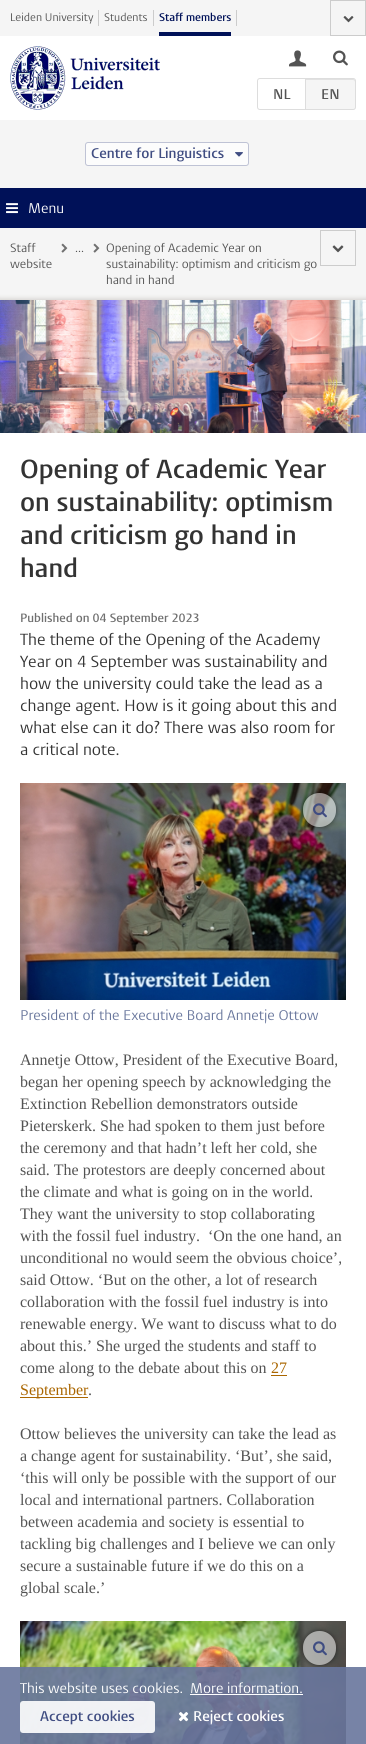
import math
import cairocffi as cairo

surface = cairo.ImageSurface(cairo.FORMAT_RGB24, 366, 1744)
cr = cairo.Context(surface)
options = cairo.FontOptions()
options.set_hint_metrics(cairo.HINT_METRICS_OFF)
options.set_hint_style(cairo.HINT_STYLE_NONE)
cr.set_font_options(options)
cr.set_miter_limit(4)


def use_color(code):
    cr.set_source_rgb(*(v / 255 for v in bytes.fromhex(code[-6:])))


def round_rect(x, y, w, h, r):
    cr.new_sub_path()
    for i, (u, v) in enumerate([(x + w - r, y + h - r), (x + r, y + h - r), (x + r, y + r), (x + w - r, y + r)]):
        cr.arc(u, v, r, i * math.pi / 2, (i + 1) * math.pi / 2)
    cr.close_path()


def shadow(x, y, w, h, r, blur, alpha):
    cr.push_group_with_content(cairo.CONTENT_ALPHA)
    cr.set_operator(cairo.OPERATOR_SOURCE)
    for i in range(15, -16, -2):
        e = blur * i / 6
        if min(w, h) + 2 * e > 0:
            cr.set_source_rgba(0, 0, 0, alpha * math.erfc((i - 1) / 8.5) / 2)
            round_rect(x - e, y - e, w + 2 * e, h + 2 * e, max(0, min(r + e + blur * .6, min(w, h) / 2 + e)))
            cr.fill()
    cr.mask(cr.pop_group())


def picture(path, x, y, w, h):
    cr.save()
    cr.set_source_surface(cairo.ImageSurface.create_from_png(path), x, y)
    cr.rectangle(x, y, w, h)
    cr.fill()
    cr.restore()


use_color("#f5f5f5")
cr.paint()
use_color("#ffffff")
cr.rectangle(0, 36, 366, 84)
cr.fill()
use_color("#cccccc")
cr.rectangle(98, 10, 1, 16)
cr.fill()
cr.select_font_face("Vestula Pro")
cr.set_font_size(11)
use_color("#535353")
cr.move_to(10, 21)
cr.show_text("Leiden University")
use_color("#cccccc")
cr.rectangle(153, 10, 1, 16)
cr.fill()
use_color("#535353")
cr.move_to(104, 21)
cr.show_text("Students")
use_color("#cccccc")
cr.rectangle(236, 10, 1, 16)
cr.fill()
cr.select_font_face("Vestula Pro SemiBold")
use_color("#001158")
cr.move_to(159, 21)
cr.show_text("Staff members")
cr.rectangle(159, 32, 72, 4)
cr.fill()
cr.rectangle(330.5, 0.5, 35, 35)
use_color("#cccccc")
cr.set_line_width(1)
cr.stroke()
picture("img1.png", 343, 16, 11, 7)
picture("img2.png", 10, 46, 150, 64)
picture("img3.png", 289, 50, 18, 17)
picture("img4.png", 333, 50, 15, 16)
cr.new_path()
cr.move_to(260, 78.5)
cr.line_to(305.5, 78.5)
cr.line_to(305.5, 109.5)
cr.line_to(260, 109.5)
cr.curve_to(258.5, 109.5, 257.5, 108.5, 257.5, 107)
cr.line_to(257.5, 81)
cr.curve_to(257.5, 79.5, 258.5, 78.5, 260, 78.5)
cr.close_path()
use_color("#dddddd")
cr.stroke()
cr.set_font_size(14)
use_color("#535353")
cr.move_to(273, 99)
cr.show_text("NL")
use_color("#f5f5f5")
cr.new_path()
cr.move_to(305, 78)
cr.line_to(353, 78)
cr.curve_to(354.5, 78, 356, 79.5, 356, 81)
cr.line_to(356, 107)
cr.curve_to(356, 108.5, 354.5, 110, 353, 110)
cr.line_to(305, 110)
cr.close_path()
cr.fill()
use_color("#e1e1e1")
cr.new_path()
cr.move_to(306, 80)
cr.line_to(353, 80)
cr.curve_to(354, 80, 355, 81, 355, 82)
cr.line_to(355, 81)
cr.curve_to(355, 80, 354, 79, 353, 79)
cr.line_to(306, 79)
cr.close_path()
cr.fill()
cr.new_path()
cr.move_to(305.5, 78.5)
cr.line_to(353, 78.5)
cr.curve_to(354.5, 78.5, 355.5, 79.5, 355.5, 81)
cr.line_to(355.5, 107)
cr.curve_to(355.5, 108.5, 354.5, 109.5, 353, 109.5)
cr.line_to(305.5, 109.5)
cr.close_path()
use_color("#dddddd")
cr.stroke()
use_color("#535353")
cr.move_to(321, 99)
cr.show_text("EN")
use_color("#fcfcfc")
round_rect(85.5, 142.5, 163, 23, 2.5)
cr.fill_preserve()
use_color("#bfc3d5")
cr.stroke()
use_color("#404d82")
cr.move_to(91, 158)
cr.show_text("Centre for Linguistics")
picture("img5.png", 235, 152, 8, 5)
use_color("#001158")
cr.rectangle(0, 188, 366, 40)
cr.fill()
picture("img6.png", 6, 203, 12, 11)
cr.select_font_face("Vestula Pro")
use_color("#ffffff")
cr.move_to(28, 213)
cr.show_text("Menu")
cr.set_font_size(12)
use_color("#535353")
cr.move_to(10, 252)
cr.show_text("Staff")
cr.move_to(10, 268)
cr.show_text("website")
picture("img7.png", 61, 243, 7, 10)
cr.move_to(75, 252)
cr.show_text("...")
picture("img7.png", 93, 243, 7, 10)
cr.move_to(106, 252)
cr.show_text("Opening of Academic Year on")
cr.move_to(106, 268)
cr.show_text("sustainability: optimism and criticism go")
cr.move_to(106, 284)
cr.show_text("hand in hand")
cr.rectangle(320.5, 230.5, 35, 35)
use_color("#cccccc")
cr.stroke()
picture("img8.png", 332, 245, 12, 8)
use_color("#786e64")
shadow(-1, 299, 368, 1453, 0, 2.5, 0.3)
use_color("#ffffff")
cr.rectangle(0, 433, 366, 1311)
cr.fill()
picture("img9.png", 0, 300, 366, 133)
cr.select_font_face("Vestula Pro SemiBold")
cr.set_font_size(26)
use_color("#333333")
cr.move_to(20, 478)
cr.show_text("Opening of Academic Year")
cr.move_to(20, 511)
cr.show_text("on sustainability: optimism")
cr.move_to(20, 544)
cr.show_text("and criticism go hand in")
cr.move_to(20, 577)
cr.show_text("hand")
cr.set_font_size(12)
use_color("#707070")
cr.move_to(20, 622)
cr.show_text("Published on 04 September 2023")
cr.select_font_face("Vestula Pro")
cr.set_font_size(16)
use_color("#333333")
cr.move_to(20, 645)
cr.show_text("The theme of the Opening of the Academy")
cr.move_to(20, 667)
cr.show_text("Year on 4 September was sustainability and")
cr.move_to(20, 689)
cr.show_text("how the university could take the lead as a")
cr.move_to(20, 711)
cr.show_text("change agent. How is it going about this and")
cr.move_to(20, 733)
cr.show_text("what else can it do? There was also room for")
cr.move_to(20, 755)
cr.show_text("a critical note.")
picture("img10.png", 20, 783, 326, 217)
cr.save()
cr.set_fill_rule(cairo.FILL_RULE_EVEN_ODD)
cr.new_path()
cr.move_to(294, 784)
cr.line_to(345, 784)
cr.line_to(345, 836)
cr.line_to(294, 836)
cr.close_path()
cr.move_to(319.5, 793)
cr.curve_to(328.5, 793, 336, 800.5, 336, 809.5)
cr.line_to(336, 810.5)
cr.curve_to(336, 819.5, 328.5, 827, 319.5, 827)
cr.curve_to(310.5, 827, 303, 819.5, 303, 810.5)
cr.line_to(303, 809.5)
cr.curve_to(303, 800.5, 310.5, 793, 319.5, 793)
cr.close_path()
cr.clip()
use_color("#000000")
shadow(303, 793, 33, 34, 16.5, 2.5, 0.5)
cr.restore()
cr.set_source_rgba(1, 1, 1, 0.5)
round_rect(303, 793, 33, 34, 16.5)
cr.fill()
picture("img11.png", 313, 803, 14, 15)
cr.set_font_size(14)
use_color("#68769c")
cr.move_to(20, 1020)
cr.show_text("President of the Executive Board Annetje Ottow")
cr.select_font_face("Liberation Serif")
cr.set_font_size(16)
use_color("#535353")
cr.move_to(20, 1065)
cr.show_text("Annetje Ottow, President of the Executive Board,")
cr.move_to(20, 1087)
cr.show_text("began her opening speech by acknowledging the")
cr.move_to(20, 1109)
cr.show_text("Extinction Rebellion demonstrators outside")
cr.move_to(20, 1131)
cr.show_text("Pieterskerk. She had spoken to them just before")
cr.move_to(20, 1153)
cr.show_text("the ceremony and that hadn’t left her cold, she")
cr.move_to(20, 1175)
cr.show_text("said. The protestors are deeply concerned about")
cr.move_to(20, 1197)
cr.show_text("the climate and what is going on in the world.")
cr.move_to(20, 1219)
cr.show_text("They want the university to stop collaborating")
cr.move_to(20, 1241)
cr.show_text("with the fossil fuel industry.  ‘On the one hand, an")
cr.move_to(20, 1263)
cr.show_text("unconditional no would seem the obvious choice’,")
cr.move_to(20, 1285)
cr.show_text("said Ottow. ‘But on the other, a lot of research")
cr.move_to(20, 1307)
cr.show_text("collaboration with the fossil fuel industry is into")
cr.move_to(20, 1329)
cr.show_text("renewable energy. We want to discuss what to do")
cr.move_to(20, 1351)
cr.show_text("about this.’ She urged the students and staff to")
cr.move_to(20, 1373)
cr.show_text("come along to the debate about this on")
use_color("#aa6600")
cr.move_to(271, 1373)
cr.show_text("27")
cr.rectangle(271, 1375, 16, 1)
cr.fill()
cr.rectangle(20, 1397, 68, 1)
cr.fill()
cr.move_to(20, 1395)
cr.show_text("September")
use_color("#535353")
cr.move_to(88, 1395)
cr.show_text(".")
cr.move_to(20, 1439)
cr.show_text("Ottow believes the university can take the lead as")
cr.move_to(20, 1461)
cr.show_text("a change agent for sustainability. ‘But’, she said,")
cr.move_to(20, 1483)
cr.show_text("‘this will only be possible with the support of our")
cr.move_to(20, 1505)
cr.show_text("local and international partners. Collaboration")
cr.move_to(20, 1527)
cr.show_text("between academia and society is essential to")
cr.move_to(20, 1549)
cr.show_text("tackling big challenges and I believe we can only")
cr.move_to(20, 1571)
cr.show_text("secure a sustainable future if we do this on a")
cr.move_to(20, 1593)
cr.show_text("global scale.’")
picture("img12.png", 20, 1621, 326, 123)
cr.save()
cr.set_fill_rule(cairo.FILL_RULE_EVEN_ODD)
cr.new_path()
cr.move_to(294, 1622)
cr.line_to(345, 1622)
cr.line_to(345, 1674)
cr.line_to(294, 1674)
cr.close_path()
cr.move_to(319.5, 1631)
cr.curve_to(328.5, 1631, 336, 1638.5, 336, 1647.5)
cr.line_to(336, 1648.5)
cr.curve_to(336, 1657.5, 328.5, 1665, 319.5, 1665)
cr.curve_to(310.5, 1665, 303, 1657.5, 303, 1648.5)
cr.line_to(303, 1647.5)
cr.curve_to(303, 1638.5, 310.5, 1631, 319.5, 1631)
cr.close_path()
cr.clip()
use_color("#000000")
shadow(303, 1631, 33, 34, 16.5, 2.5, 0.5)
cr.restore()
cr.set_source_rgba(1, 1, 1, 0.5)
round_rect(303, 1631, 33, 34, 16.5)
cr.fill()
picture("img13.png", 313, 1641, 14, 15)
cr.set_source_rgba(0.408, 0.463, 0.612, 0.9)
cr.rectangle(0, 1667, 366, 77)
cr.fill()
cr.select_font_face("Vestula Pro")
cr.set_font_size(14)
use_color("#ffffff")
cr.move_to(20, 1693)
cr.show_text("This website uses cookies.")
cr.move_to(190, 1693)
cr.show_text("More information.")
cr.rectangle(190, 1694, 113, 1)
cr.fill()
cr.set_source_rgba(1, 1, 1, 0.9)
round_rect(20, 1701, 135, 32, 3)
cr.fill()
cr.select_font_face("Vestula Pro SemiBold")
use_color("#404d82")
cr.move_to(40, 1721)
cr.show_text("Accept cookies")
picture("img14.png", 178, 1712, 11, 10)
use_color("#ffffff")
cr.move_to(193, 1721)
cr.show_text("Reject cookies")
surface.write_to_png("result.png")
